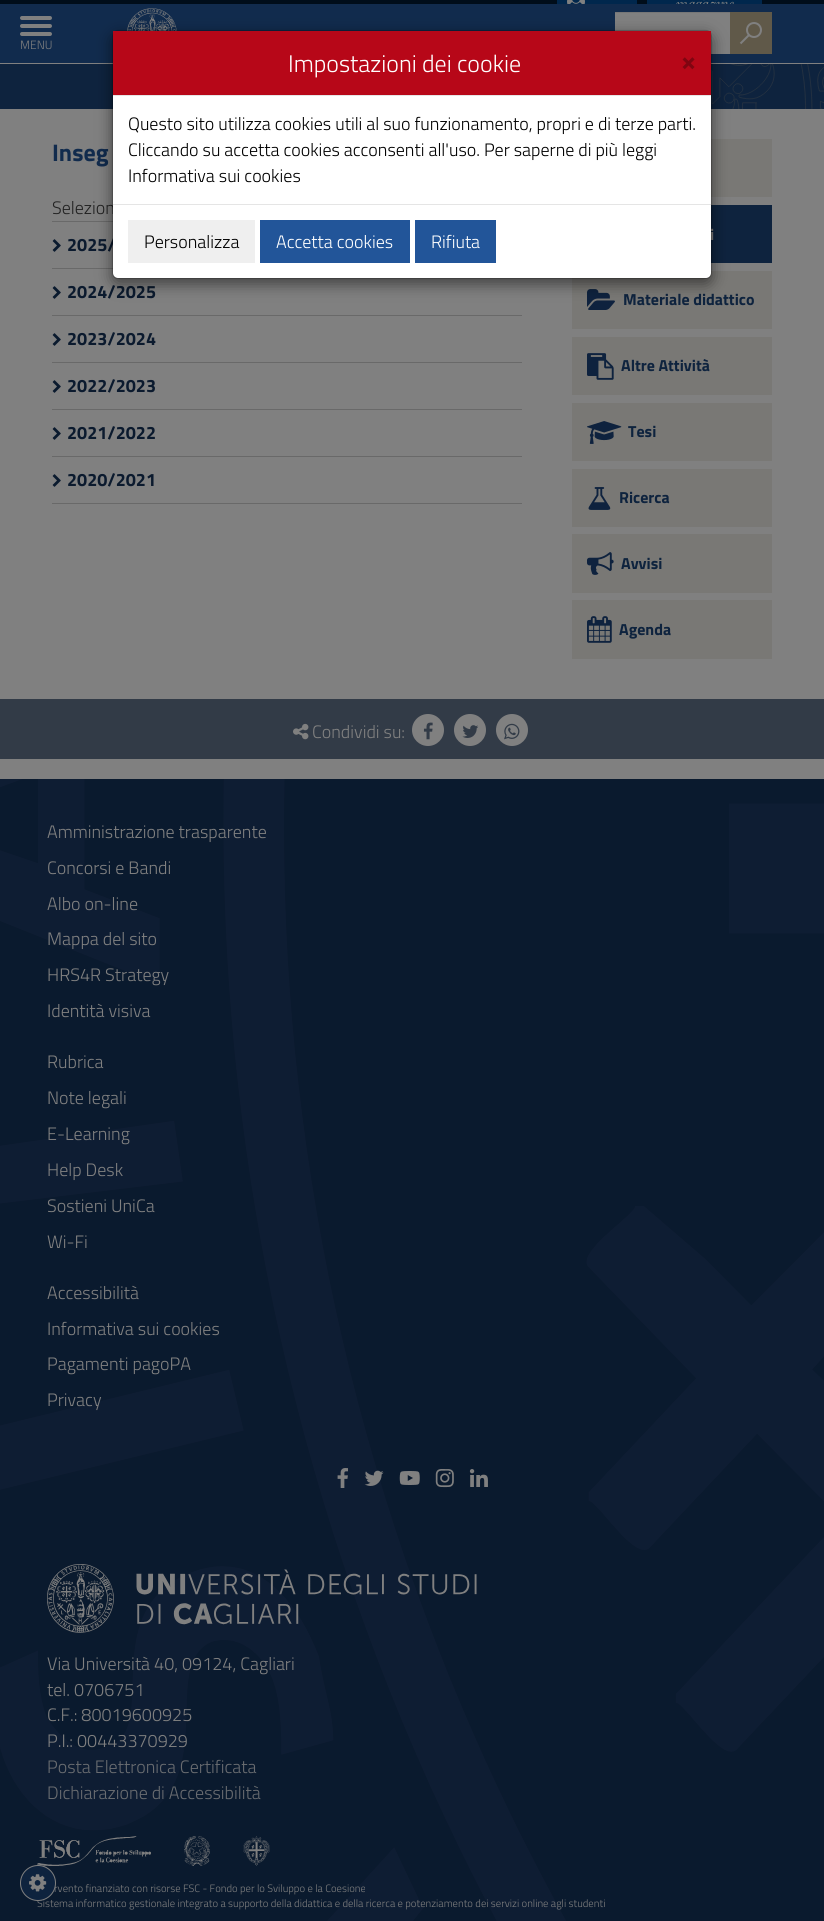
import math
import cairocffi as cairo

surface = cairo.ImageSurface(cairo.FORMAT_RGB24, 824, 1921)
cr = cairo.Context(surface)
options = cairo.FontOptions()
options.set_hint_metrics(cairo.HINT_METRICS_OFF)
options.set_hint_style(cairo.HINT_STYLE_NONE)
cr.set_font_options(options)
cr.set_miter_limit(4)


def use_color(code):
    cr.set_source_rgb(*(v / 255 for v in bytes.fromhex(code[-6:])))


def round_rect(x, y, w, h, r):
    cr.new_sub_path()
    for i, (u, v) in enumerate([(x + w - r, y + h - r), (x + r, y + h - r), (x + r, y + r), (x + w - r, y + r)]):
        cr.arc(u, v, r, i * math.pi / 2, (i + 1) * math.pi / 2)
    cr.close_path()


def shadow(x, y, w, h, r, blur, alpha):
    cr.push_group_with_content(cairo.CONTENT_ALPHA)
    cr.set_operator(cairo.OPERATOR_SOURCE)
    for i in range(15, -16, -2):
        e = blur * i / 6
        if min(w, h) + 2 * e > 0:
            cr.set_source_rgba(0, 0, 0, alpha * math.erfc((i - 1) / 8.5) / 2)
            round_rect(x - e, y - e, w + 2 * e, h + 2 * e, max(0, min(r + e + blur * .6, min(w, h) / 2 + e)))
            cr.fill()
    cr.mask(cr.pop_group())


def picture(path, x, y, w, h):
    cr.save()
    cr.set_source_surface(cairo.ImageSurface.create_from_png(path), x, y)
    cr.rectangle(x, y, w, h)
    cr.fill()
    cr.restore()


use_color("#808080")
cr.paint()
use_color("#112b4d")
cr.rectangle(0, 4, 824, 59)
cr.fill()
use_color("#000d1a")
cr.rectangle(0, 0, 824, 4)
cr.fill()
use_color("#00274d")
cr.rectangle(557, 0, 80, 4)
cr.fill()
picture("img1.png", 567, 0, 18, 4)
cr.rectangle(647, 0, 115, 4)
cr.fill()
picture("img2.png", 676, 0, 58, 4)
use_color("#808080")
round_rect(20, 16, 32, 4, 2)
cr.fill()
round_rect(20, 24, 32, 4, 2)
cr.fill()
round_rect(20, 32, 32, 4, 2)
cr.fill()
cr.select_font_face("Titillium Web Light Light")
cr.set_font_size(12)
cr.move_to(20, 49)
cr.show_text("MENU")
picture("img3.png", 127, 8, 50, 23)
cr.rectangle(615, 13, 115, 41)
cr.fill()
use_color("#767676")
cr.rectangle(615, 12, 116, 1)
cr.fill()
use_color("#605949")
cr.rectangle(730, 12, 42, 42)
cr.fill()
cr.new_path()
cr.move_to(740.5, 43.5)
cr.line_to(749, 35)
use_color("#808080")
cr.stroke()
cr.arc(754, 30, 7, 0, 2 * math.pi)
cr.stroke()
use_color("#0e233e")
cr.rectangle(0, 64, 824, 45)
cr.fill()
picture("img4.png", 711, 64, 113, 45)
cr.select_font_face("Titillium Web", cairo.FONT_SLANT_NORMAL, cairo.FONT_WEIGHT_BOLD)
cr.set_font_size(24)
use_color("#112b4d")
cr.move_to(52, 161)
cr.show_text("Inseg")
cr.select_font_face("Titillium Web Light Light")
cr.set_font_size(18)
use_color("#222222")
cr.move_to(52, 214)
cr.show_text("Selezion")
use_color("#696969")
cr.rectangle(52, 221, 61, 1)
cr.fill()
cr.rectangle(52, 268, 61, 1)
cr.fill()
picture("img5.png", 52, 239, 9, 13)
cr.select_font_face("Titillium Web", cairo.FONT_SLANT_NORMAL, cairo.FONT_WEIGHT_BOLD)
use_color("#0b1a2e")
cr.move_to(67, 251)
cr.show_text("2025/")
use_color("#696969")
cr.rectangle(52, 315, 470, 1)
cr.fill()
picture("img5.png", 52, 286, 9, 13)
use_color("#0b1a2e")
cr.move_to(67, 298)
cr.show_text("2024/2025")
use_color("#696969")
cr.rectangle(52, 362, 470, 1)
cr.fill()
picture("img5.png", 52, 333, 9, 13)
use_color("#0b1a2e")
cr.move_to(67, 345)
cr.show_text("2023/2024")
use_color("#696969")
cr.rectangle(52, 409, 470, 1)
cr.fill()
picture("img5.png", 52, 380, 9, 13)
use_color("#0b1a2e")
cr.move_to(67, 392)
cr.show_text("2022/2023")
use_color("#696969")
cr.rectangle(52, 456, 470, 1)
cr.fill()
picture("img5.png", 52, 427, 9, 13)
use_color("#0b1a2e")
cr.move_to(67, 439)
cr.show_text("2021/2022")
use_color("#696969")
cr.rectangle(52, 503, 470, 1)
cr.fill()
picture("img5.png", 52, 474, 9, 13)
use_color("#0b1a2e")
cr.move_to(67, 486)
cr.show_text("2020/2021")
use_color("#797875")
cr.rectangle(711, 139, 61, 58)
cr.fill()
use_color("#0e233e")
cr.rectangle(711, 205, 61, 58)
cr.fill()
cr.set_font_size(16)
use_color("#808080")
cr.move_to(710, 240)
cr.show_text("i")
use_color("#797875")
cr.rectangle(572, 271, 200, 58)
cr.fill()
picture("img6.png", 587, 289, 28, 21)
use_color("#0e233e")
cr.move_to(623, 305)
cr.show_text("Materiale didattico")
use_color("#797875")
cr.rectangle(572, 337, 200, 58)
cr.fill()
picture("img7.png", 587, 353, 27, 27)
use_color("#0e233e")
cr.move_to(621, 371)
cr.show_text("Altre Attività")
use_color("#797875")
cr.rectangle(572, 403, 200, 58)
cr.fill()
picture("img8.png", 587, 421, 35, 23)
use_color("#0e233e")
cr.move_to(628, 437)
cr.show_text("Tesi")
use_color("#797875")
cr.rectangle(572, 469, 200, 58)
cr.fill()
picture("img9.png", 588, 487, 23, 23)
use_color("#0e233e")
cr.move_to(619, 503)
cr.show_text("Ricerca")
use_color("#797875")
cr.rectangle(572, 534, 200, 59)
cr.fill()
picture("img10.png", 587, 552, 27, 23)
use_color("#0e233e")
cr.move_to(621, 569)
cr.show_text("Avvisi")
use_color("#797875")
cr.rectangle(572, 600, 200, 59)
cr.fill()
picture("img11.png", 587, 616, 25, 27)
use_color("#0e233e")
cr.move_to(619, 635)
cr.show_text("Agenda")
use_color("#323b47")
cr.rectangle(0, 699, 824, 60)
cr.fill()
picture("img12.png", 293, 723, 16, 17)
cr.select_font_face("Titillium Web Light Light")
cr.set_font_size(18)
use_color("#808080")
cr.move_to(312, 738)
cr.show_text("Condividi su:")
cr.new_path()
cr.arc(428, 730, 16, 0, 2 * math.pi)
cr.fill()
picture("img13.png", 423, 722, 10, 18)
cr.arc(470, 730, 16, 0, 2 * math.pi)
cr.fill()
picture("img14.png", 462, 725, 17, 13)
cr.arc(512, 730, 16, 0, 2 * math.pi)
cr.fill()
picture("img15.png", 504, 723, 16, 17)
picture("img16.png", 0, 779, 824, 1142)
cr.move_to(47, 838)
cr.show_text("Amministrazione trasparente")
cr.move_to(47, 874)
cr.show_text("Concorsi e Bandi")
cr.move_to(47, 910)
cr.show_text("Albo on-line")
cr.move_to(47, 945)
cr.show_text("Mappa del sito")
cr.move_to(47, 981)
cr.show_text("HRS4R Strategy")
cr.move_to(47, 1017)
cr.show_text("Identità visiva")
cr.move_to(47, 1068)
cr.show_text("Rubrica")
cr.move_to(47, 1104)
cr.show_text("Note legali")
cr.move_to(47, 1140)
cr.show_text("E-Learning")
cr.move_to(47, 1176)
cr.show_text("Help Desk")
cr.move_to(47, 1212)
cr.show_text("Sostieni UniCa")
cr.move_to(47, 1248)
cr.show_text("Wi-Fi")
cr.move_to(47, 1299)
cr.show_text("Accessibilità")
cr.move_to(47, 1335)
cr.show_text("Informativa sui cookies")
cr.move_to(47, 1370)
cr.show_text("Pagamenti pagoPA")
cr.move_to(47, 1406)
cr.show_text("Privacy")
picture("img17.png", 337, 1468, 11, 20)
picture("img18.png", 364, 1470, 20, 16)
picture("img19.png", 399, 1471, 21, 14)
picture("img20.png", 435, 1469, 19, 19)
picture("img21.png", 469, 1469, 19, 18)
picture("img22.png", 47, 1564, 430, 69)
cr.move_to(47, 1670)
cr.show_text("Via Università 40, 09124, Cagliari")
cr.move_to(47, 1696)
cr.show_text("tel. 0706751")
cr.move_to(47, 1721)
cr.show_text("C.F.: 80019600925")
cr.move_to(47, 1747)
cr.show_text("P.I.: 00443370929")
use_color("#696c70")
cr.move_to(47, 1773)
cr.show_text("Posta Elettronica Certificata")
cr.move_to(47, 1799)
cr.show_text("Dichiarazione di Accessibilità")
picture("img23.png", 37, 1836, 114, 30)
picture("img24.png", 184, 1836, 26, 30)
picture("img25.png", 243, 1836, 27, 30)
cr.set_font_size(10.67)
use_color("#808080")
cr.move_to(54, 1892)
cr.show_text("rvento finanziato con risorse FSC - Fondo per lo Sviluppo e la Coesione")
cr.move_to(37, 1907)
cr.show_text("Sistema informatico gestionale integrato a supporto della didattica e della ricerca e potenziamento dei servizi online agli studenti")
use_color("#000000")
shadow(112, 35, 600, 249, 6, 7.5, 0.5)
use_color("#ffffff")
round_rect(113, 31, 598, 247, 5)
cr.fill()
round_rect(112.5, 30.5, 599, 248, 5.5)
cr.set_source_rgba(0, 0, 0, 0.2)
cr.set_line_width(1)
cr.stroke()
use_color("#b70718")
cr.rectangle(113, 31, 598, 64)
cr.fill()
use_color("#e5e5e5")
cr.rectangle(113, 95, 598, 1)
cr.fill()
cr.set_font_size(24)
use_color("#ffffff")
cr.move_to(288, 72)
cr.show_text("Impostazioni dei cookie")
cr.select_font_face("Titillium Web", cairo.FONT_SLANT_NORMAL, cairo.FONT_WEIGHT_BOLD)
cr.set_font_size(27)
use_color("#800511")
cr.move_to(681, 70)
cr.show_text("×")
cr.select_font_face("Titillium Web Light Light")
cr.set_font_size(18)
use_color("#000000")
cr.move_to(128, 130)
cr.show_text("Questo sito utilizza cookies utili al suo funzionamento, propri e di terze parti.")
cr.move_to(128, 156)
cr.show_text("Cliccando su accetta cookies acconsenti all'uso. Per saperne di più leggi")
cr.move_to(128, 182)
cr.show_text("Informativa sui cookies")
use_color("#e5e5e5")
cr.rectangle(113, 204, 598, 1)
cr.fill()
use_color("#efefef")
cr.rectangle(128, 220, 127, 43)
cr.fill()
use_color("#000000")
cr.move_to(144, 248)
cr.show_text("Personalizza")
use_color("#225599")
cr.rectangle(260, 220, 150, 43)
cr.fill()
use_color("#ffffff")
cr.move_to(276, 248)
cr.show_text("Accetta cookies")
use_color("#225599")
cr.rectangle(415, 220, 81, 43)
cr.fill()
use_color("#ffffff")
cr.move_to(431, 248)
cr.show_text("Rifiuta")
use_color("#0e233e")
cr.new_path()
cr.arc(38, 1883, 17.5, 0, 2 * math.pi)
cr.fill_preserve()
use_color("#808080")
cr.stroke()
picture("img26.png", 29, 1874, 18, 18)
surface.write_to_png("result.png")
